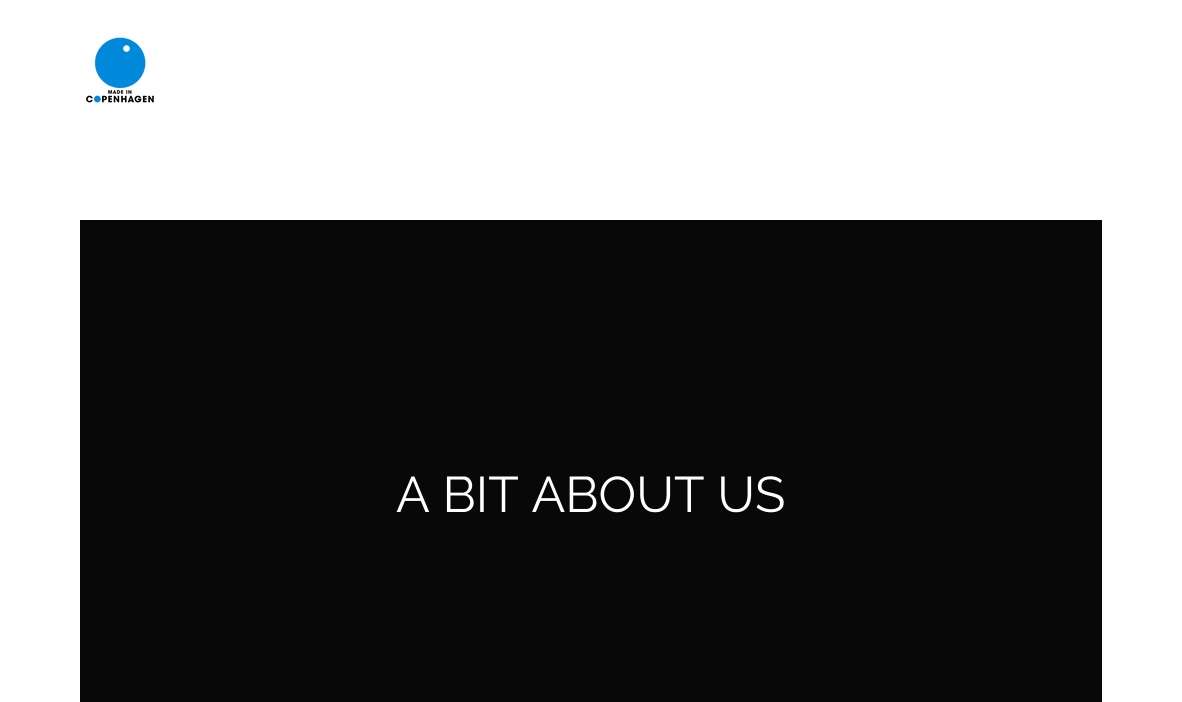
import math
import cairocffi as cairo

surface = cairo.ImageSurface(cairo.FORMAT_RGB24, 1182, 702)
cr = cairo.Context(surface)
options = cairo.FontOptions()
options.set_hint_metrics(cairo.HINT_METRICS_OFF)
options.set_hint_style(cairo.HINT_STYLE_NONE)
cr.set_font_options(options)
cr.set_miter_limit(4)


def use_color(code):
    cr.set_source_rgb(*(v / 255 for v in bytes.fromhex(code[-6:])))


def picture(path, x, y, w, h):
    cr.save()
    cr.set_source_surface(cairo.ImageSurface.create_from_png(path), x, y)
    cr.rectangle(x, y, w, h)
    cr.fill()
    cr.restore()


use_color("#ffffff")
cr.paint()
picture("img1.png", 86, 37, 68, 66)
use_color("#080808")
cr.rectangle(80, 220, 1022, 482)
cr.fill()
cr.select_font_face("Raleway")
cr.set_font_size(50)
use_color("#ffffff")
cr.move_to(396, 512)
cr.show_text("A BIT ABOUT US")
surface.write_to_png("result.png")
